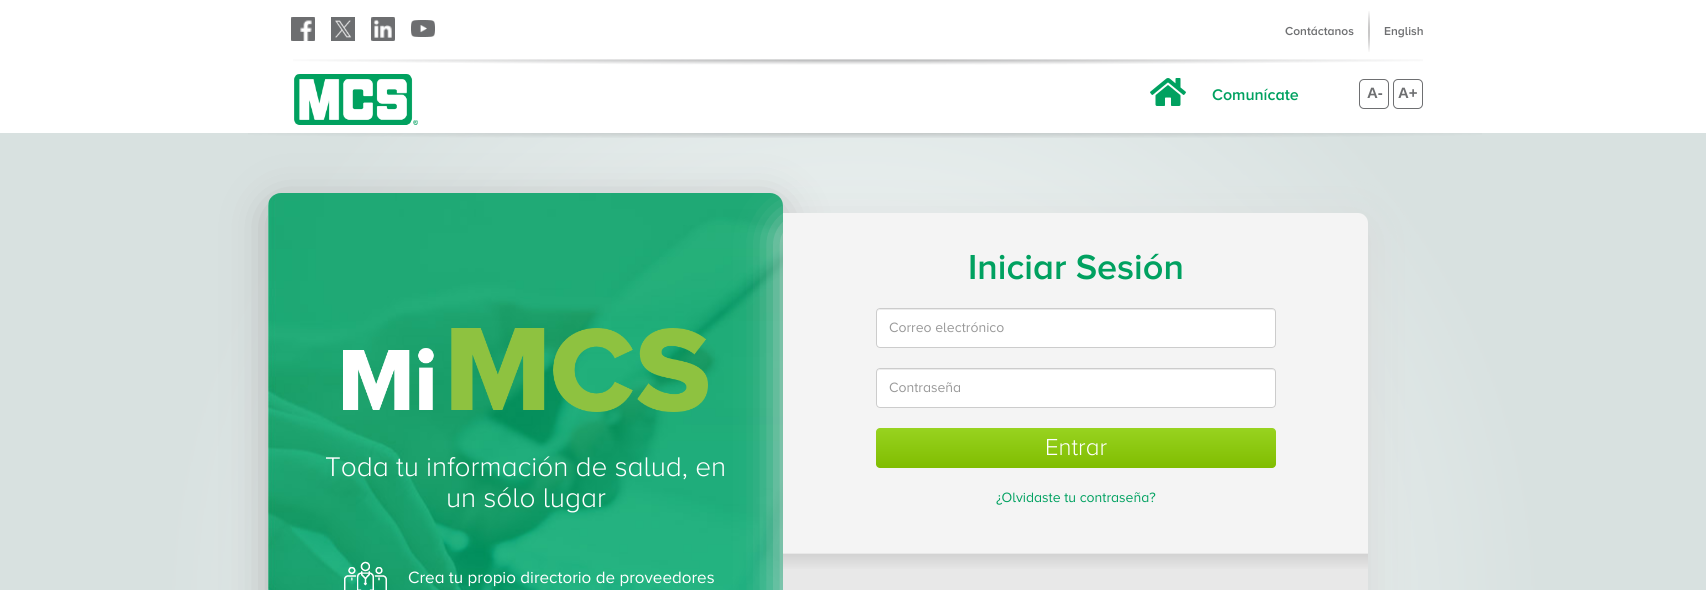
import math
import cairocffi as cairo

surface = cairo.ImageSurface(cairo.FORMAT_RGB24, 1706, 590)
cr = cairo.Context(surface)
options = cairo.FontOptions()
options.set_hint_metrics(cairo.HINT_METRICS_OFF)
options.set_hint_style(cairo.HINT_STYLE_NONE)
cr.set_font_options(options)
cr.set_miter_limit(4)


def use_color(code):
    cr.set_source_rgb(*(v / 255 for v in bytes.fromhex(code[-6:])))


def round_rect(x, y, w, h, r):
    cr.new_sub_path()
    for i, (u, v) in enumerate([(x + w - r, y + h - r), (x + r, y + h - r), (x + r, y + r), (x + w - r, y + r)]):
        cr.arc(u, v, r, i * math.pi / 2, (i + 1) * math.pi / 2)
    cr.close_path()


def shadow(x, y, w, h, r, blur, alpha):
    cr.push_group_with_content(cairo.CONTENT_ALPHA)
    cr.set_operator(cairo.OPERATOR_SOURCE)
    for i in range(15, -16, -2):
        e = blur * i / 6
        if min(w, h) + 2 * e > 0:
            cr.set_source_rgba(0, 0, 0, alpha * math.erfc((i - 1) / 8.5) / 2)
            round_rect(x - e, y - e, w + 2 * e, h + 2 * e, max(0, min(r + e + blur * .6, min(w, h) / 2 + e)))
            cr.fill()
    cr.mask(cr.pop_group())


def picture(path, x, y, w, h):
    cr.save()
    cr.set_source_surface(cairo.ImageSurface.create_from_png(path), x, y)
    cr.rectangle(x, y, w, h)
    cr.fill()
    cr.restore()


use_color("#ffffff")
cr.paint()
picture("img1.png", 294, 74, 124, 51)
picture("img2.png", 293, 59, 1130, 6)
picture("img3.png", 291, 17, 24, 24)
picture("img4.png", 331, 17, 24, 24)
picture("img5.png", 371, 17, 24, 24)
picture("img6.png", 411, 20, 24, 17)
cr.select_font_face("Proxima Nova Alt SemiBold")
cr.set_font_size(12)
use_color("#6e6f71")
cr.move_to(1285, 35)
cr.show_text("Contáctanos")
picture("img7.png", 1368, 11, 2, 41)
cr.move_to(1384, 35)
cr.show_text("English")
picture("img8.png", 1150, 78, 36, 28)
cr.set_font_size(16)
use_color("#00a160")
cr.move_to(1212, 100)
cr.show_text("Comunícate")
round_rect(1359.5, 79.5, 29, 29, 4.5)
use_color("#6e6f71")
cr.set_line_width(1)
cr.stroke()
cr.select_font_face("Liberation Sans", cairo.FONT_SLANT_NORMAL, cairo.FONT_WEIGHT_BOLD)
cr.set_font_size(15)
cr.move_to(1367, 98)
cr.show_text("A-")
round_rect(1393.5, 79.5, 29, 29, 4.5)
cr.stroke()
cr.move_to(1398, 98)
cr.show_text("A+")
picture("img10.png", 0, 133, 1706, 457)
picture("img9.png", 248, 133, 1234, 5)
use_color("#b1b1b1")
shadow(268, 203, 515, 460, 13, 20, 1)
picture("img11.png", 268, 193, 515, 397)
use_color("#d8d8d8")
shadow(783, 223, 585, 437, 10, 20, 1)
use_color("#f4f4f4")
cr.new_path()
cr.move_to(783, 213)
cr.line_to(1358, 213)
cr.curve_to(1363.5, 213, 1368, 217.5, 1368, 223)
cr.line_to(1368, 590)
cr.curve_to(1368, 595.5, 1363.5, 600, 1358, 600)
cr.line_to(783, 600)
cr.close_path()
cr.fill()
cr.select_font_face("Proxima Nova Alt SemiBold")
cr.set_font_size(36)
use_color("#00a160")
cr.move_to(968, 279)
cr.show_text("Iniciar Sesión")
use_color("#ffffff")
round_rect(876, 308, 400, 40, 4)
cr.fill()
use_color("#ececec")
cr.new_path()
cr.move_to(880, 310)
cr.line_to(1272, 310)
cr.curve_to(1274, 310, 1275, 311, 1275, 313)
cr.curve_to(1275, 311, 1274, 309, 1272, 309)
cr.line_to(880, 309)
cr.line_to(878, 310)
cr.line_to(877, 313)
cr.curve_to(877, 311, 878, 310, 880, 310)
cr.close_path()
cr.fill()
round_rect(876.5, 308.5, 399, 39, 3.5)
use_color("#cccccc")
cr.stroke()
cr.select_font_face("Proxima Nova Alt")
cr.set_font_size(14)
use_color("#999999")
cr.move_to(889, 332)
cr.show_text("Correo electrónico")
use_color("#ffffff")
round_rect(876, 368, 400, 40, 4)
cr.fill()
use_color("#ececec")
cr.new_path()
cr.move_to(880, 370)
cr.line_to(1272, 370)
cr.curve_to(1274, 370, 1275, 371, 1275, 373)
cr.curve_to(1275, 371, 1274, 369, 1272, 369)
cr.line_to(880, 369)
cr.line_to(878, 370)
cr.line_to(877, 373)
cr.curve_to(877, 371, 878, 370, 880, 370)
cr.close_path()
cr.fill()
round_rect(876.5, 368.5, 399, 39, 3.5)
use_color("#cccccc")
cr.stroke()
use_color("#999999")
cr.move_to(889, 392)
cr.show_text("Contraseña")
gradient = cairo.LinearGradient(1076, 428, 1076, 468)
gradient.add_color_stop_rgba(0, 0.596, 0.827, 0.125, 1)
gradient.add_color_stop_rgba(1, 0.502, 0.741, 0, 1)
cr.set_source(gradient)
round_rect(876, 428, 400, 40, 4)
cr.fill()
cr.select_font_face("Proxima Nova Alt Light")
cr.set_font_size(24)
use_color("#ffffff")
cr.move_to(1045, 455)
cr.show_text("Entrar")
cr.select_font_face("Proxima Nova Alt")
cr.set_font_size(14)
use_color("#00a160")
cr.move_to(996, 502)
cr.show_text("¿Olvidaste tu contraseña?")
use_color("#e8e8e8")
cr.rectangle(783, 553, 585, 37)
cr.fill()
gradient = cairo.LinearGradient(1076, 554, 1076, 571)
gradient.add_color_stop_rgba(0, 0.824, 0.824, 0.824, 1)
gradient.add_color_stop_rgba(1, 0.91, 0.91, 0.91, 1)
cr.set_source(gradient)
cr.rectangle(783, 554, 585, 15)
cr.fill()
picture("img12.png", 343, 328, 365, 84)
cr.select_font_face("Proxima Nova Alt Light")
cr.set_font_size(28)
use_color("#ffffff")
cr.move_to(325, 476)
cr.show_text("Toda tu información de salud, en")
cr.move_to(446, 507)
cr.show_text("un sólo lugar")
picture("img13.png", 344, 561, 43, 29)
cr.select_font_face("Proxima Nova Alt")
cr.set_font_size(17)
cr.move_to(408, 583)
cr.show_text("Crea tu propio directorio de proveedores")
surface.write_to_png("result.png")
